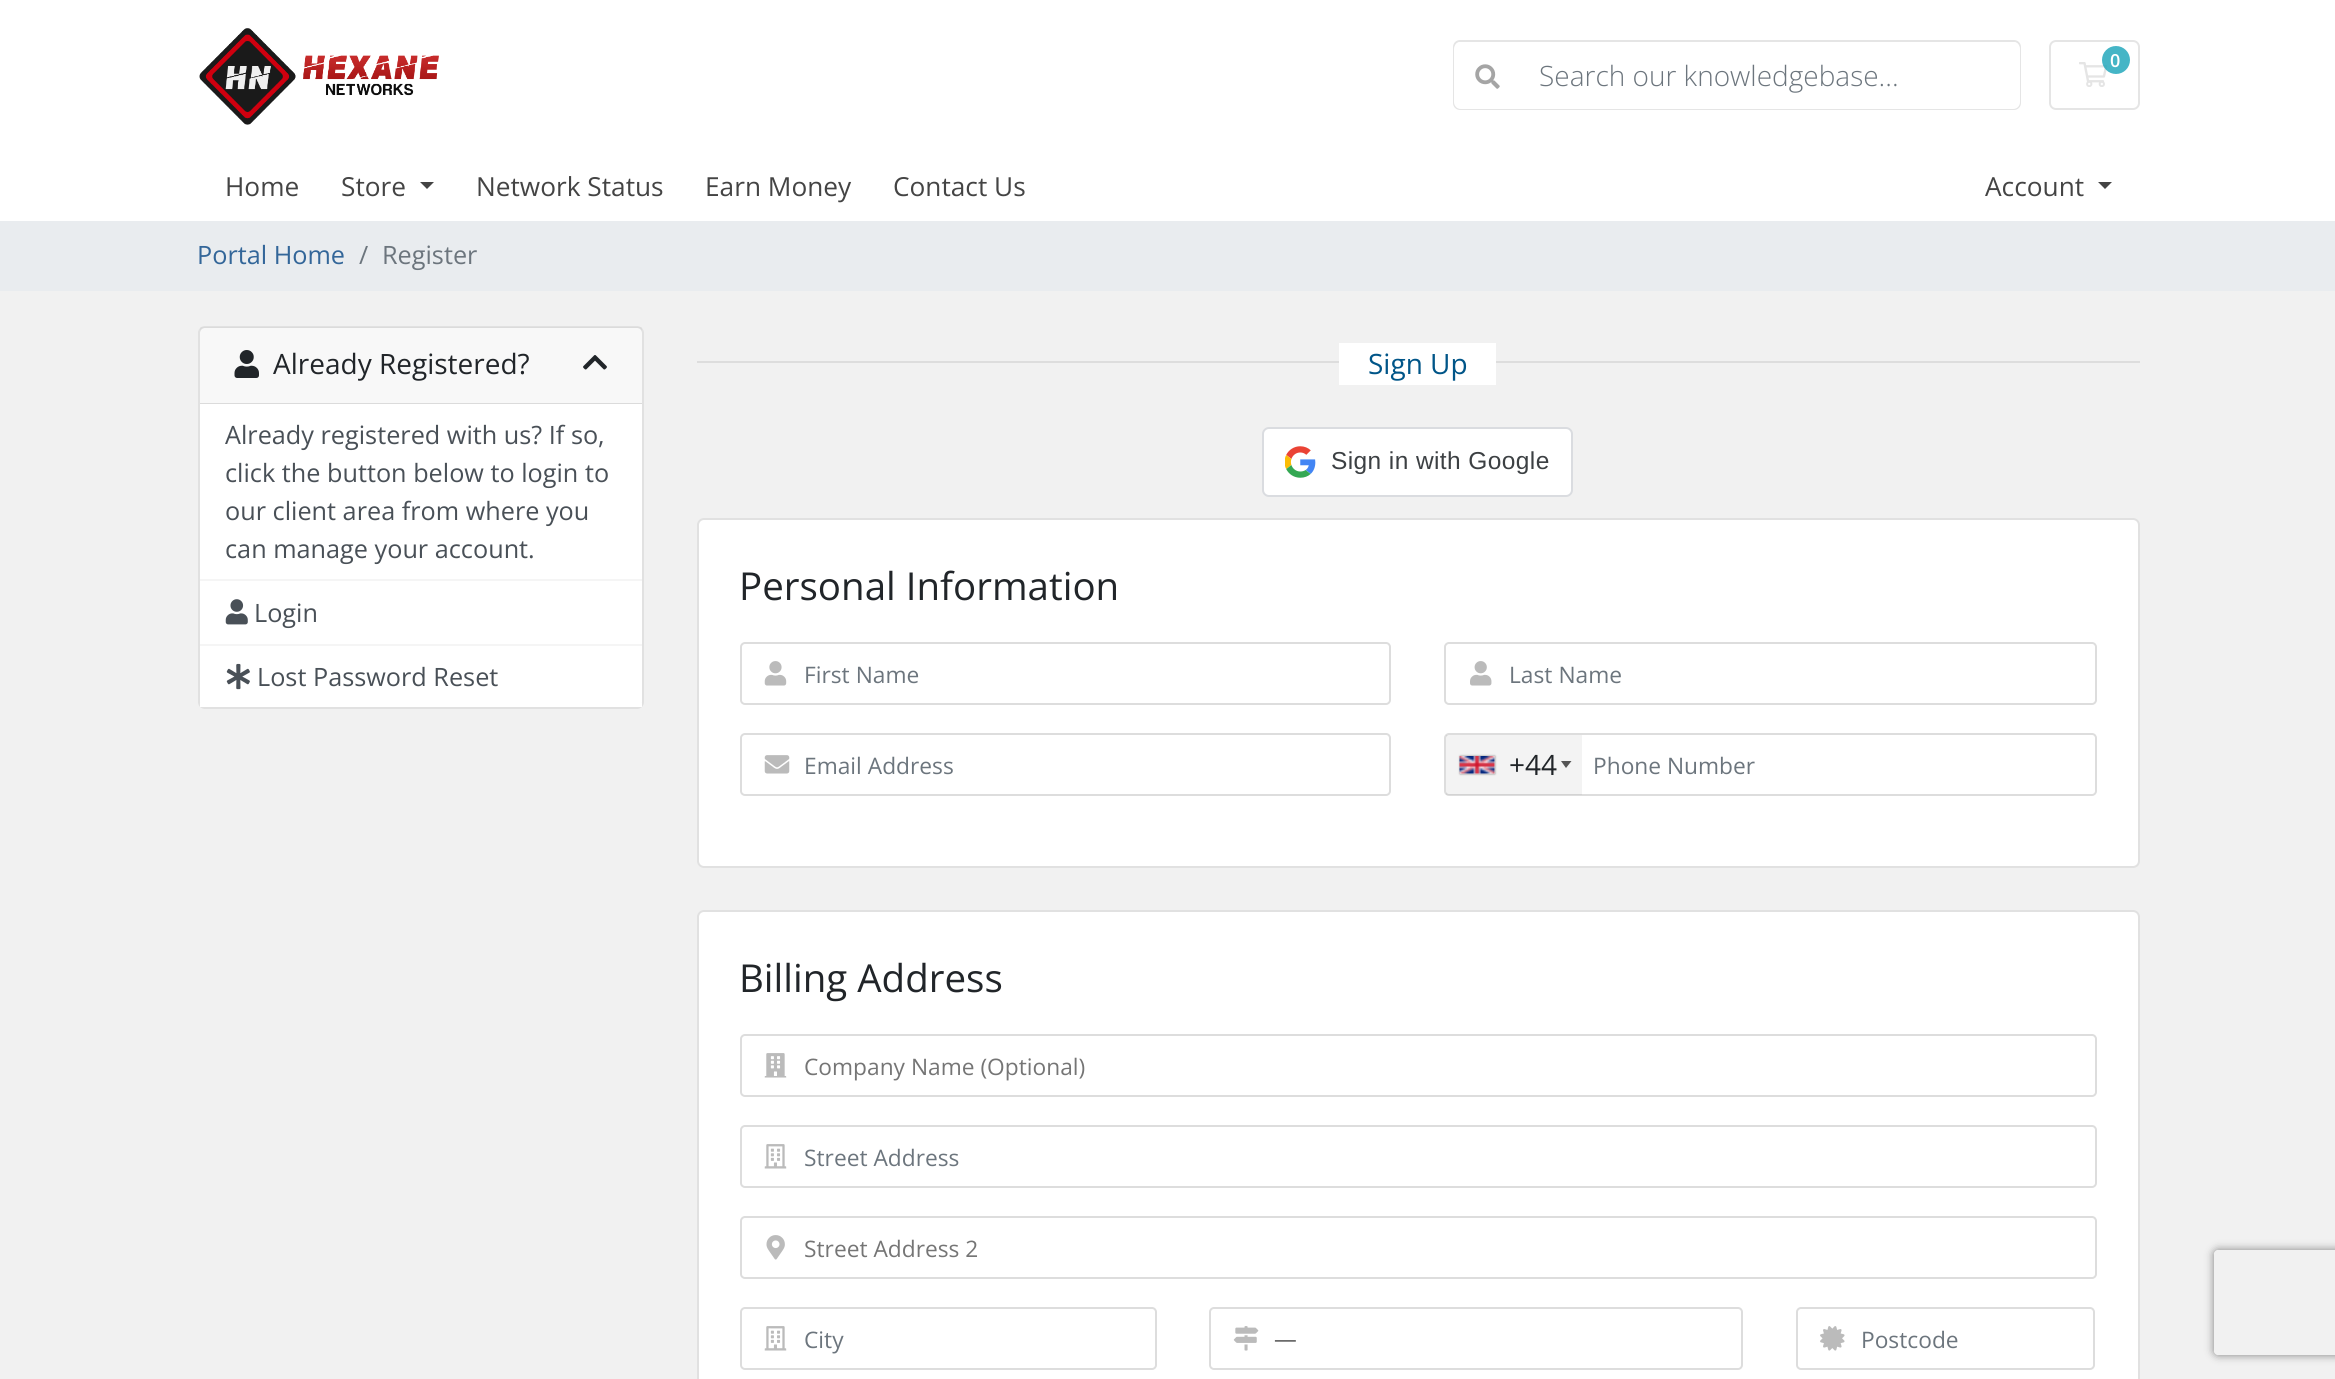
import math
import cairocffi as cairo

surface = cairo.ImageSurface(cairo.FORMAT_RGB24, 2335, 1379)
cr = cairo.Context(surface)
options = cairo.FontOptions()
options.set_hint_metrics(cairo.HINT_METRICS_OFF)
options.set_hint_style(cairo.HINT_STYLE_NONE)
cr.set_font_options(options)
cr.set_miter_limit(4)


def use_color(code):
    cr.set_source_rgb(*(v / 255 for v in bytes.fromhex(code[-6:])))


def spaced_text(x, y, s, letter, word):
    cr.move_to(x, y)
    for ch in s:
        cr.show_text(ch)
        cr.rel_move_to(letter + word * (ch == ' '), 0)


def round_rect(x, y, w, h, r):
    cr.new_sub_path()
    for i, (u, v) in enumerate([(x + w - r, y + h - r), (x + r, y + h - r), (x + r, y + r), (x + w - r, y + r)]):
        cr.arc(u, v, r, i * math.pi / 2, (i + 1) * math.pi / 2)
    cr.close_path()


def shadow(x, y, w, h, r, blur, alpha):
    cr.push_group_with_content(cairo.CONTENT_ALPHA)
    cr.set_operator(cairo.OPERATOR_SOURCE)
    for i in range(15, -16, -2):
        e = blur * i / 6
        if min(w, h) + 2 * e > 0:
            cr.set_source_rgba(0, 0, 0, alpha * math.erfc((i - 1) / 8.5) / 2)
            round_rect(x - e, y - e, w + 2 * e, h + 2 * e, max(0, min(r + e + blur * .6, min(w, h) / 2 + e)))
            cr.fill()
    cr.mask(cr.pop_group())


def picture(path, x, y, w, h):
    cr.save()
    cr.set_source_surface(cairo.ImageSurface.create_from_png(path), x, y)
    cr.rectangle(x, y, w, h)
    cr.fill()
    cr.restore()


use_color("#f1f1f1")
cr.paint()
use_color("#ffffff")
cr.rectangle(0, 0, 2335, 221)
cr.fill()
picture("img1.png", 199, 28, 240, 97)
round_rect(2050, 41, 89, 68, 6)
use_color("#e5e5e5")
cr.stroke()
picture("img2.png", 2079, 62, 29, 25)
cr.set_source_rgba(0.09, 0.635, 0.722, 0.8)
cr.arc(2116, 60, 14, 0, 2 * math.pi)
cr.fill()
cr.select_font_face("Open Sans SemiBold")
cr.set_font_size(18)
use_color("#ffffff")
cr.move_to(2110, 67)
cr.show_text("0")
round_rect(1454, 41, 566, 68, 6)
use_color("#e5e5e5")
cr.stroke()
use_color("#ffffff")
cr.new_path()
cr.move_to(1519, 42)
cr.line_to(2013, 42)
cr.curve_to(2017, 42, 2020, 45, 2020, 49)
cr.line_to(2020, 102)
cr.curve_to(2020, 106, 2017, 109, 2013, 109)
cr.line_to(1519, 109)
cr.close_path()
cr.fill()
cr.new_path()
cr.move_to(1461, 42)
cr.line_to(1521, 42)
cr.line_to(1521, 109)
cr.line_to(1461, 109)
cr.curve_to(1457, 109, 1454, 106, 1454, 102)
cr.line_to(1454, 49)
cr.curve_to(1454, 45, 1457, 42, 1461, 42)
cr.close_path()
cr.fill()
picture("img3.png", 1475, 64, 25, 25)
cr.select_font_face("Open Sans Light")
cr.set_font_size(28)
use_color("#6c757d")
cr.move_to(1539, 86)
cr.show_text("Search our knowledgebase...")
cr.select_font_face("Open Sans")
cr.set_font_size(26.25)
use_color("#444444")
cr.move_to(225, 196)
cr.show_text("Home")
cr.move_to(341, 196)
cr.show_text("Store")
cr.new_path()
cr.move_to(420, 182)
cr.line_to(434, 182)
cr.line_to(427, 189)
cr.close_path()
cr.fill()
cr.move_to(476, 196)
cr.show_text("Network Status")
cr.move_to(705, 196)
cr.show_text("Earn Money")
cr.move_to(893, 196)
cr.show_text("Contact Us")
cr.move_to(1985, 196)
cr.show_text("Account")
cr.new_path()
cr.move_to(2098, 182)
cr.line_to(2112, 182)
cr.line_to(2105, 189)
cr.close_path()
cr.fill()
use_color("#e9ecef")
cr.rectangle(0, 221, 2335, 70)
cr.fill()
cr.set_font_size(25.25)
use_color("#336699")
cr.move_to(197, 264)
cr.show_text("Portal Home")
use_color("#6c757d")
cr.move_to(359, 264)
cr.show_text("/")
cr.move_to(382, 264)
cr.show_text("Register")
use_color("#ffffff")
round_rect(198, 326, 446, 383, 7)
cr.fill()
round_rect(199, 327, 444, 381, 6)
cr.set_source_rgba(0, 0, 0, 0.12)
cr.stroke()
cr.set_source_rgba(0, 0, 0, 0.03)
cr.rectangle(200, 327, 442, 77)
cr.fill()
cr.set_source_rgba(0, 0, 0, 0.12)
cr.rectangle(200, 403, 442, 1)
cr.fill()
picture("img4.png", 234, 350, 25, 28)
cr.set_font_size(28)
use_color("#212529")
cr.move_to(273, 374)
cr.show_text("Already Registered?")
picture("img5.png", 583, 355, 24, 15)
use_color("#f5f5f5")
cr.rectangle(200, 579, 442, 2)
cr.fill()
cr.set_font_size(25.25)
use_color("#495057")
cr.move_to(225, 444)
cr.show_text("Already registered with us? If so,")
cr.move_to(225, 482)
cr.show_text("click the button below to login to")
cr.move_to(225, 520)
cr.show_text("our client area from where you")
cr.move_to(225, 558)
cr.show_text("can manage your account.")
use_color("#f5f5f5")
cr.rectangle(200, 644, 442, 2)
cr.fill()
picture("img6.png", 225, 599, 23, 26)
use_color("#495057")
cr.move_to(254, 622)
cr.show_text("Login")
use_color("#ffffff")
cr.rectangle(200, 703, 442, 4)
cr.fill()
picture("img7.png", 226, 663, 24, 27)
use_color("#495057")
cr.move_to(257, 686)
cr.show_text("Lost Password Reset")
use_color("#dddddd")
cr.rectangle(697, 361, 1443, 2)
cr.fill()
use_color("#ffffff")
cr.rectangle(1339, 343, 157, 42)
cr.fill()
cr.set_font_size(28)
use_color("#005588")
cr.move_to(1368, 374)
cr.show_text("Sign Up")
use_color("#ffffff")
round_rect(1263, 428, 309, 68, 6)
cr.fill_preserve()
use_color("#dadce0")
cr.stroke()
picture("img8.png", 1285, 446, 31, 32)
cr.select_font_face("Liberation Sans")
cr.set_font_size(24.5)
use_color("#3c4043")
spaced_text(1331, 469, "Sign in with Google", 0.4, 0)
use_color("#ffffff")
round_rect(697, 518, 1443, 350, 7)
cr.fill()
round_rect(698, 519, 1441, 348, 6)
cr.set_source_rgba(0, 0, 0, 0.12)
cr.stroke()
cr.select_font_face("Open Sans")
cr.set_font_size(38.5)
use_color("#212529")
cr.move_to(739, 600)
cr.show_text("Personal Information")
round_rect(741, 643, 649, 61, 4)
use_color("#dddddd")
cr.stroke()
picture("img9.png", 764, 661, 23, 25)
cr.set_font_size(22.75)
use_color("#6c757d")
cr.move_to(804, 683)
cr.show_text("First Name")
round_rect(1445, 643, 651, 61, 4)
use_color("#dddddd")
cr.stroke()
picture("img10.png", 1470, 661, 22, 25)
use_color("#6c757d")
cr.move_to(1509, 683)
cr.show_text("Last Name")
round_rect(741, 734, 649, 61, 4)
use_color("#dddddd")
cr.stroke()
picture("img11.png", 764, 755, 26, 19)
use_color("#6c757d")
cr.move_to(804, 774)
cr.show_text("Email Address")
round_rect(1445, 734, 651, 61, 4)
use_color("#dddddd")
cr.stroke()
cr.set_source_rgba(0, 0, 0, 0.05)
cr.rectangle(1446, 735, 136, 60)
cr.fill()
use_color("#888888")
shadow(1460, 756, 35, 18, 0, 1, 1)
use_color("#dbdbdb")
cr.rectangle(1460, 756, 35, 18)
cr.fill()
picture("img12.png", 1459, 756, 36, 18)
cr.set_font_size(28)
use_color("#212529")
cr.move_to(1509, 775)
cr.show_text("+44")
use_color("#555555")
cr.new_path()
cr.move_to(1561, 761)
cr.line_to(1571.5, 761)
cr.line_to(1566, 768)
cr.close_path()
cr.fill()
cr.set_font_size(22.75)
use_color("#6c757d")
cr.move_to(1593, 774)
cr.show_text("Phone Number")
use_color("#ffffff")
round_rect(697, 910, 1443, 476, 7)
cr.fill()
round_rect(698, 911, 1441, 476, 6)
cr.set_source_rgba(0, 0, 0, 0.12)
cr.stroke()
cr.set_font_size(38.5)
use_color("#212529")
cr.move_to(739, 992)
cr.show_text("Billing Address")
round_rect(741, 1035, 1355, 61, 4)
use_color("#dddddd")
cr.stroke()
picture("img13.png", 764, 1053, 23, 25)
cr.set_font_size(22.75)
use_color("#757575")
cr.move_to(804, 1075)
cr.show_text("Company Name (Optional)")
round_rect(741, 1126, 1355, 61, 4)
use_color("#dddddd")
cr.stroke()
picture("img14.png", 764, 1144, 23, 25)
use_color("#6c757d")
cr.move_to(804, 1166)
cr.show_text("Street Address")
round_rect(741, 1217, 1355, 61, 4)
use_color("#dddddd")
cr.stroke()
picture("img15.png", 766, 1235, 19, 25)
use_color("#757575")
cr.move_to(804, 1257)
cr.show_text("Street Address 2")
round_rect(741, 1308, 415, 61, 4)
use_color("#dddddd")
cr.stroke()
picture("img14.png", 764, 1326, 23, 25)
use_color("#6c757d")
cr.move_to(804, 1348)
cr.show_text("City")
round_rect(1210, 1308, 532, 61, 4)
use_color("#dddddd")
cr.stroke()
picture("img16.png", 1233, 1326, 26, 25)
use_color("#626262")
cr.move_to(1274, 1347)
cr.show_text("—")
round_rect(1797, 1308, 297, 61, 4)
use_color("#dddddd")
cr.stroke()
picture("img17.png", 1820, 1326, 25, 25)
use_color("#6c757d")
cr.move_to(1861, 1348)
cr.show_text("Postcode")
cr.save()
cr.set_fill_rule(cairo.FILL_RULE_EVEN_ODD)
cr.new_path()
cr.move_to(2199, 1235)
cr.line_to(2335, 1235)
cr.line_to(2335, 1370)
cr.line_to(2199, 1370)
cr.close_path()
cr.move_to(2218, 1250)
cr.line_to(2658, 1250)
cr.curve_to(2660, 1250, 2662, 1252, 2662, 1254)
cr.line_to(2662, 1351)
cr.curve_to(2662, 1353, 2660, 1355, 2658, 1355)
cr.line_to(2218, 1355)
cr.curve_to(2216, 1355, 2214, 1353, 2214, 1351)
cr.line_to(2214, 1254)
cr.curve_to(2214, 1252, 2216, 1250, 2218, 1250)
cr.close_path()
cr.clip()
use_color("#808080")
shadow(2214, 1250, 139, 105, 4, 4.5, 1)
cr.restore()
surface.write_to_png("result.png")
